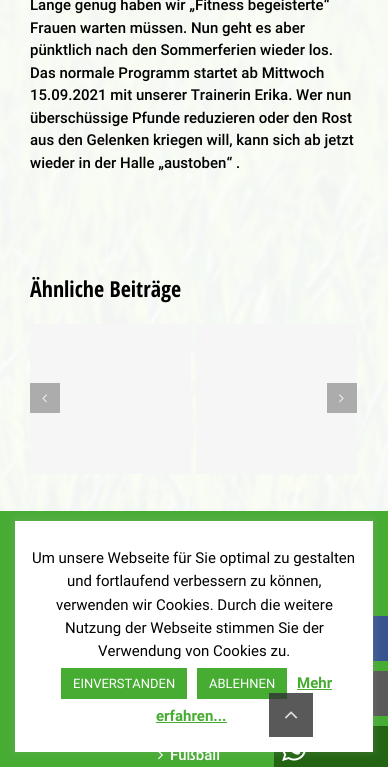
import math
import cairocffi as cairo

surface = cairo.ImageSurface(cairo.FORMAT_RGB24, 388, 767)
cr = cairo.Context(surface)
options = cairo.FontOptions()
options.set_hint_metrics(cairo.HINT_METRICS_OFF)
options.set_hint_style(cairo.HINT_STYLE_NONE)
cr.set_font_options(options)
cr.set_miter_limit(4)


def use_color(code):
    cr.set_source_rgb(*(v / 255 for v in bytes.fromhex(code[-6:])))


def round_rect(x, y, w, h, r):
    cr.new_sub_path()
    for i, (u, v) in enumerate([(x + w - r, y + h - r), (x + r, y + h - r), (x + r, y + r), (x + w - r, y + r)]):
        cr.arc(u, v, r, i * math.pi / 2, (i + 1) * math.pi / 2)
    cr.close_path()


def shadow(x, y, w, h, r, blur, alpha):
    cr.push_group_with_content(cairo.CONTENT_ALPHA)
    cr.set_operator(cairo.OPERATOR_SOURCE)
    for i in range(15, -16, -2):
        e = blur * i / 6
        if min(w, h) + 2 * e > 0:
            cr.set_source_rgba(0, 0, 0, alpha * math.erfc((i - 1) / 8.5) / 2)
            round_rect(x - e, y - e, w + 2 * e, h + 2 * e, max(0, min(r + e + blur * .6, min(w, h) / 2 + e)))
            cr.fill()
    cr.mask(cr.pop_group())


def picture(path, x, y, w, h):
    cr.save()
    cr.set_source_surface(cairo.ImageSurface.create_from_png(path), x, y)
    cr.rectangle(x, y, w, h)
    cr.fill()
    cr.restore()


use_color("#ffffff")
cr.paint()
picture("img1.png", 0, 0, 388, 511)
cr.set_source_rgba(1, 1, 1, 0.95)
cr.rectangle(0, 0, 388, 511)
cr.fill()
cr.select_font_face("Roboto Medium")
cr.set_font_size(15)
use_color("#000000")
cr.move_to(30, 10)
cr.show_text("Lange genug haben wir „Fitness begeisterte“")
cr.move_to(30, 33)
cr.show_text("Frauen warten müssen. Nun geht es aber")
cr.move_to(30, 55)
cr.show_text("pünktlich nach den Sommerferien wieder los.")
cr.move_to(30, 78)
cr.show_text("Das normale Programm startet ab Mittwoch")
cr.move_to(30, 100)
cr.show_text("15.09.2021 mit unserer Trainerin Erika. Wer nun")
cr.move_to(30, 123)
cr.show_text("überschüssige Pfunde reduzieren oder den Rost")
cr.move_to(30, 145)
cr.show_text("aus den Gelenken kriegen will, kann sich ab jetzt")
cr.move_to(30, 168)
cr.show_text("wieder in der Halle „austoben“ .")
cr.select_font_face("Open Sans Condensed", cairo.FONT_SLANT_NORMAL, cairo.FONT_WEIGHT_BOLD)
cr.set_font_size(22)
cr.move_to(30, 297)
cr.show_text("Ähnliche Beiträge")
use_color("#f6f6f6")
cr.rectangle(30, 324, 161, 150)
cr.fill()
cr.rectangle(196, 324, 161, 150)
cr.fill()
use_color("#acacac")
cr.rectangle(30, 383, 30, 30)
cr.fill()
picture("img2.png", 42, 394, 5, 9)
cr.rectangle(327, 383, 30, 30)
cr.fill()
picture("img3.png", 339, 394, 5, 9)
use_color("#46ac32")
cr.rectangle(0, 511, 388, 256)
cr.fill()
picture("img4.png", 158, 752, 5, 8)
cr.select_font_face("Roboto Medium")
cr.set_font_size(15)
use_color("#ffffff")
cr.move_to(170, 760)
cr.show_text("Fußball")
use_color("#38548f")
cr.rectangle(373, 616, 15, 45)
cr.fill()
use_color("#595959")
cr.rectangle(373, 671, 15, 45)
cr.fill()
use_color("#226411")
cr.rectangle(274, 726, 114, 41)
cr.fill()
picture("img5.png", 282, 752, 24, 10)
use_color("#acabab")
shadow(15, 520, 358, 231, 0, 5, 0.3)
use_color("#ffffff")
cr.rectangle(15, 521, 358, 231)
cr.fill()
cr.select_font_face("Roboto")
use_color("#000000")
cr.move_to(32, 563)
cr.show_text("Um unsere Webseite für Sie optimal zu gestalten")
cr.move_to(67, 586)
cr.show_text("und fortlaufend verbessern zu können,")
cr.move_to(56, 610)
cr.show_text("verwenden wir Cookies. Durch die weitere")
cr.move_to(65, 633)
cr.show_text("Nutzung der Webseite stimmen Sie der")
cr.move_to(98, 656)
cr.show_text("Verwendung von Cookies zu.")
use_color("#46ac32")
cr.rectangle(61, 668, 126, 31)
cr.fill()
cr.set_font_size(13)
use_color("#ffffff")
cr.move_to(73, 688)
cr.show_text("EINVERSTANDEN")
use_color("#46ac32")
cr.rectangle(197, 668, 90, 31)
cr.fill()
use_color("#ffffff")
cr.move_to(209, 688)
cr.show_text("ABLEHNEN")
cr.select_font_face("Roboto", cairo.FONT_SLANT_NORMAL, cairo.FONT_WEIGHT_BOLD)
cr.set_font_size(15)
use_color("#46ac32")
cr.move_to(297, 688)
cr.show_text("Mehr")
cr.rectangle(297, 689, 35, 1)
cr.fill()
cr.move_to(156, 721)
cr.show_text("erfahren...")
cr.rectangle(156, 722, 71, 1)
cr.fill()
cr.set_source_rgba(0.2, 0.2, 0.2, 0.81)
cr.rectangle(269, 693, 44, 44)
cr.fill()
picture("img6.png", 285, 711, 13, 8)
surface.write_to_png("result.png")
